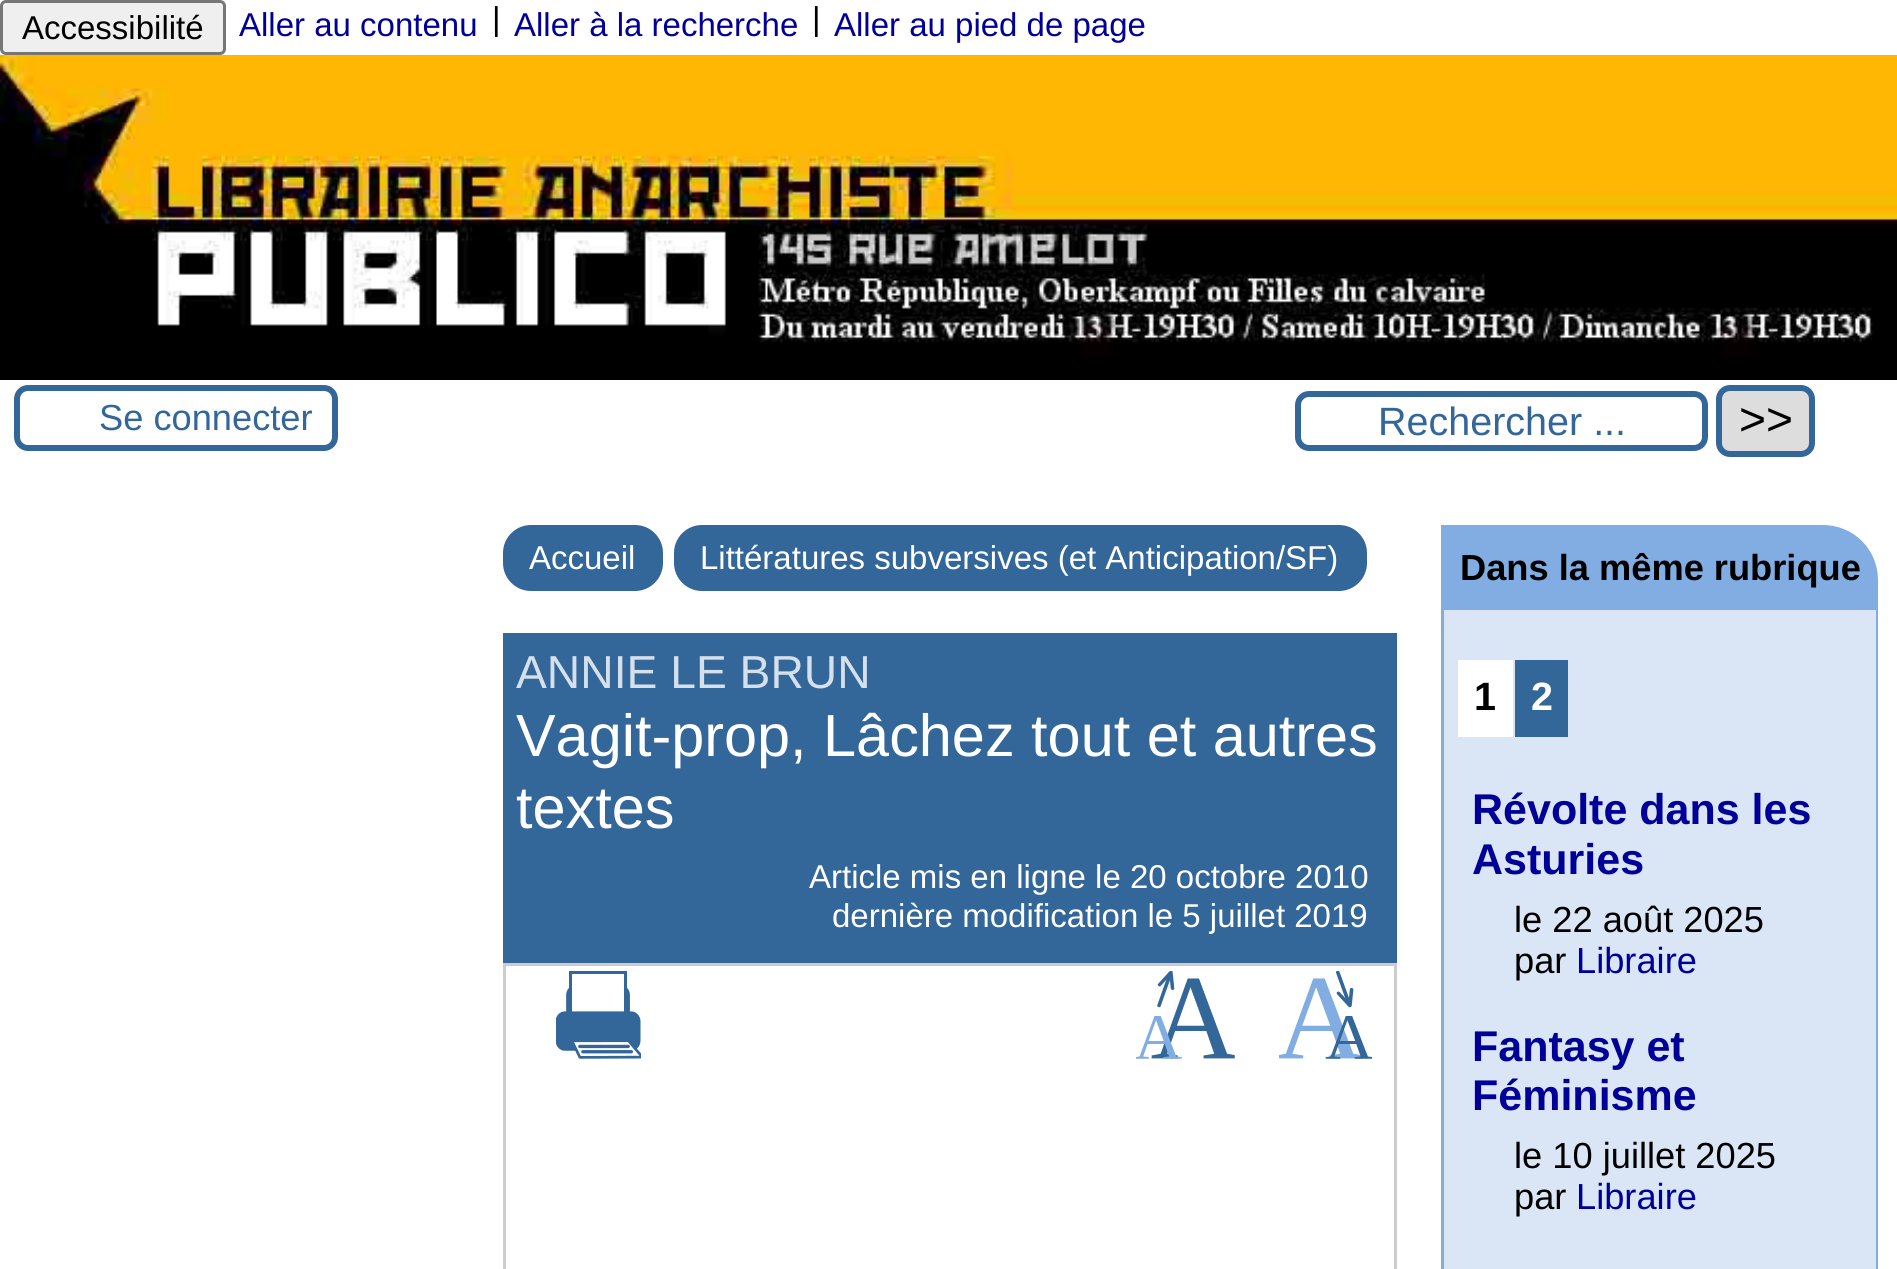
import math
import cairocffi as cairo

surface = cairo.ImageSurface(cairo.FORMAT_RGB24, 1897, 1269)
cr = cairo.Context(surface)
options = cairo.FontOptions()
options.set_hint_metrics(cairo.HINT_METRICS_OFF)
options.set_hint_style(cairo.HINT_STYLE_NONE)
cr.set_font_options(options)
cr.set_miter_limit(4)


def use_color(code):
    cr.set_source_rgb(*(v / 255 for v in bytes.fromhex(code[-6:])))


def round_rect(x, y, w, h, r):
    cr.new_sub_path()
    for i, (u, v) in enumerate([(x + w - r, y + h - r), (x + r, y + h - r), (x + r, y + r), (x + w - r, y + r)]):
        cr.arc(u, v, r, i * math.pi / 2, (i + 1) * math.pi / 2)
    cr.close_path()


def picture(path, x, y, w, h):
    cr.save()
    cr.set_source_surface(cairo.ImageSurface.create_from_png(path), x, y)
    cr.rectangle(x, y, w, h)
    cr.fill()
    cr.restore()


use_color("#ffffff")
cr.paint()
use_color("#000000")
cr.rectangle(0, 357, 1897, 23)
cr.fill()
use_color("#efefef")
round_rect(1.5, 1.5, 223, 52, 4.5)
cr.fill_preserve()
use_color("#767676")
cr.set_line_width(3)
cr.stroke()
cr.select_font_face("Liberation Sans")
cr.set_font_size(33)
use_color("#000000")
cr.move_to(22, 39)
cr.show_text("Accessibilité")
use_color("#000099")
cr.move_to(239, 36)
cr.show_text("Aller au contenu")
use_color("#000000")
cr.move_to(492, 30)
cr.show_text("|")
use_color("#000099")
cr.move_to(514, 36)
cr.show_text("Aller à la recherche")
use_color("#000000")
cr.move_to(812, 30)
cr.show_text("|")
use_color("#000099")
cr.move_to(834, 36)
cr.show_text("Aller au pied de page")
picture("img1.png", 0, 55, 1897, 302)
round_rect(17, 388, 318, 60, 11)
use_color("#336699")
cr.set_line_width(6)
cr.stroke()
cr.set_font_size(36.25)
cr.move_to(99, 430)
cr.show_text("Se connecter")
round_rect(1298, 394, 407, 54, 11)
cr.stroke()
cr.set_font_size(39.5)
cr.move_to(1378, 435)
cr.show_text("Rechercher ...")
use_color("#dddddd")
round_rect(1719, 388, 93, 66, 11)
cr.fill_preserve()
use_color("#336699")
cr.stroke()
cr.set_font_size(46.25)
use_color("#000000")
cr.move_to(1739, 435)
cr.show_text(">>")
use_color("#336699")
round_rect(503, 525, 160, 66, 28)
cr.fill()
cr.set_font_size(33)
use_color("#ffffff")
cr.move_to(529, 569)
cr.show_text("Accueil")
use_color("#336699")
round_rect(674, 525, 693, 66, 28)
cr.fill()
use_color("#ffffff")
cr.move_to(700, 569)
cr.show_text("Littératures subversives (et Anticipation/SF)")
use_color("#336699")
cr.rectangle(503, 633, 894, 330)
cr.fill()
cr.set_font_size(46.25)
use_color("#d6e0eb")
cr.move_to(516, 688)
cr.show_text("ANNIE LE BRUN")
cr.set_font_size(59.4)
use_color("#ffffff")
cr.move_to(516, 756)
cr.show_text("Vagit-prop, Lâchez tout et autres")
cr.move_to(516, 828)
cr.show_text("textes")
cr.set_font_size(33)
cr.move_to(809, 888)
cr.show_text("Article mis en ligne le 20 octobre 2010")
cr.move_to(832, 927)
cr.show_text("dernière modification le 5 juillet 2019")
cr.rectangle(504.5, 964.5, 891, 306)
use_color("#cccccc")
cr.set_line_width(3)
cr.stroke()
picture("img2.png", 556, 971, 85, 88)
picture("img3.png", 1136, 971, 99, 88)
picture("img4.png", 1279, 971, 93, 88)
use_color("#82ade2")
cr.new_path()
cr.move_to(1441, 525)
cr.line_to(1823, 525)
cr.curve_to(1853.5, 525, 1878, 549.5, 1878, 580)
cr.line_to(1878, 611)
cr.line_to(1441, 611)
cr.close_path()
cr.fill()
cr.select_font_face("Liberation Sans", cairo.FONT_SLANT_NORMAL, cairo.FONT_WEIGHT_BOLD)
cr.set_font_size(36.25)
use_color("#000000")
cr.move_to(1460, 580)
cr.show_text("Dans la même rubrique")
use_color("#dae6f6")
cr.new_path()
cr.move_to(1444, 610)
cr.line_to(1876, 610)
cr.line_to(1876, 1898)
cr.line_to(1468, 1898)
cr.curve_to(1455, 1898, 1444, 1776, 1444, 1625)
cr.close_path()
cr.fill()
use_color("#82ade2")
cr.set_fill_rule(cairo.FILL_RULE_EVEN_ODD)
cr.new_path()
cr.move_to(1441, 610)
cr.line_to(1878, 610)
cr.line_to(1878, 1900)
cr.line_to(1468, 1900)
cr.curve_to(1453, 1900, 1441, 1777, 1441, 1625)
cr.close_path()
cr.move_to(1444, 610)
cr.line_to(1876, 610)
cr.line_to(1876, 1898)
cr.line_to(1468, 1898)
cr.curve_to(1455, 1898, 1444, 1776, 1444, 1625)
cr.close_path()
cr.fill()
use_color("#ffffff")
cr.rectangle(1458, 660, 55, 77)
cr.fill()
cr.set_font_size(39.5)
use_color("#000000")
cr.move_to(1474, 710)
cr.show_text("1")
use_color("#336699")
cr.rectangle(1515, 660, 53, 77)
cr.fill()
use_color("#ffffff")
cr.move_to(1531, 710)
cr.show_text("2")
cr.set_font_size(43)
use_color("#000099")
cr.move_to(1472, 824)
cr.show_text("Révolte dans les")
cr.move_to(1472, 874)
cr.show_text("Asturies")
cr.select_font_face("Liberation Sans")
cr.set_font_size(36.25)
use_color("#000000")
cr.move_to(1514, 932)
cr.show_text("le 22 août 2025")
cr.move_to(1514, 973)
cr.show_text("par")
use_color("#000099")
cr.move_to(1576, 973)
cr.show_text("Libraire")
cr.select_font_face("Liberation Sans", cairo.FONT_SLANT_NORMAL, cairo.FONT_WEIGHT_BOLD)
cr.set_font_size(43)
cr.move_to(1472, 1061)
cr.show_text("Fantasy et")
cr.move_to(1472, 1110)
cr.show_text("Féminisme")
cr.select_font_face("Liberation Sans")
cr.set_font_size(36.25)
use_color("#000000")
cr.move_to(1514, 1168)
cr.show_text("le 10 juillet 2025")
cr.move_to(1514, 1209)
cr.show_text("par")
use_color("#000099")
cr.move_to(1576, 1209)
cr.show_text("Libraire")
surface.write_to_png("result.png")
